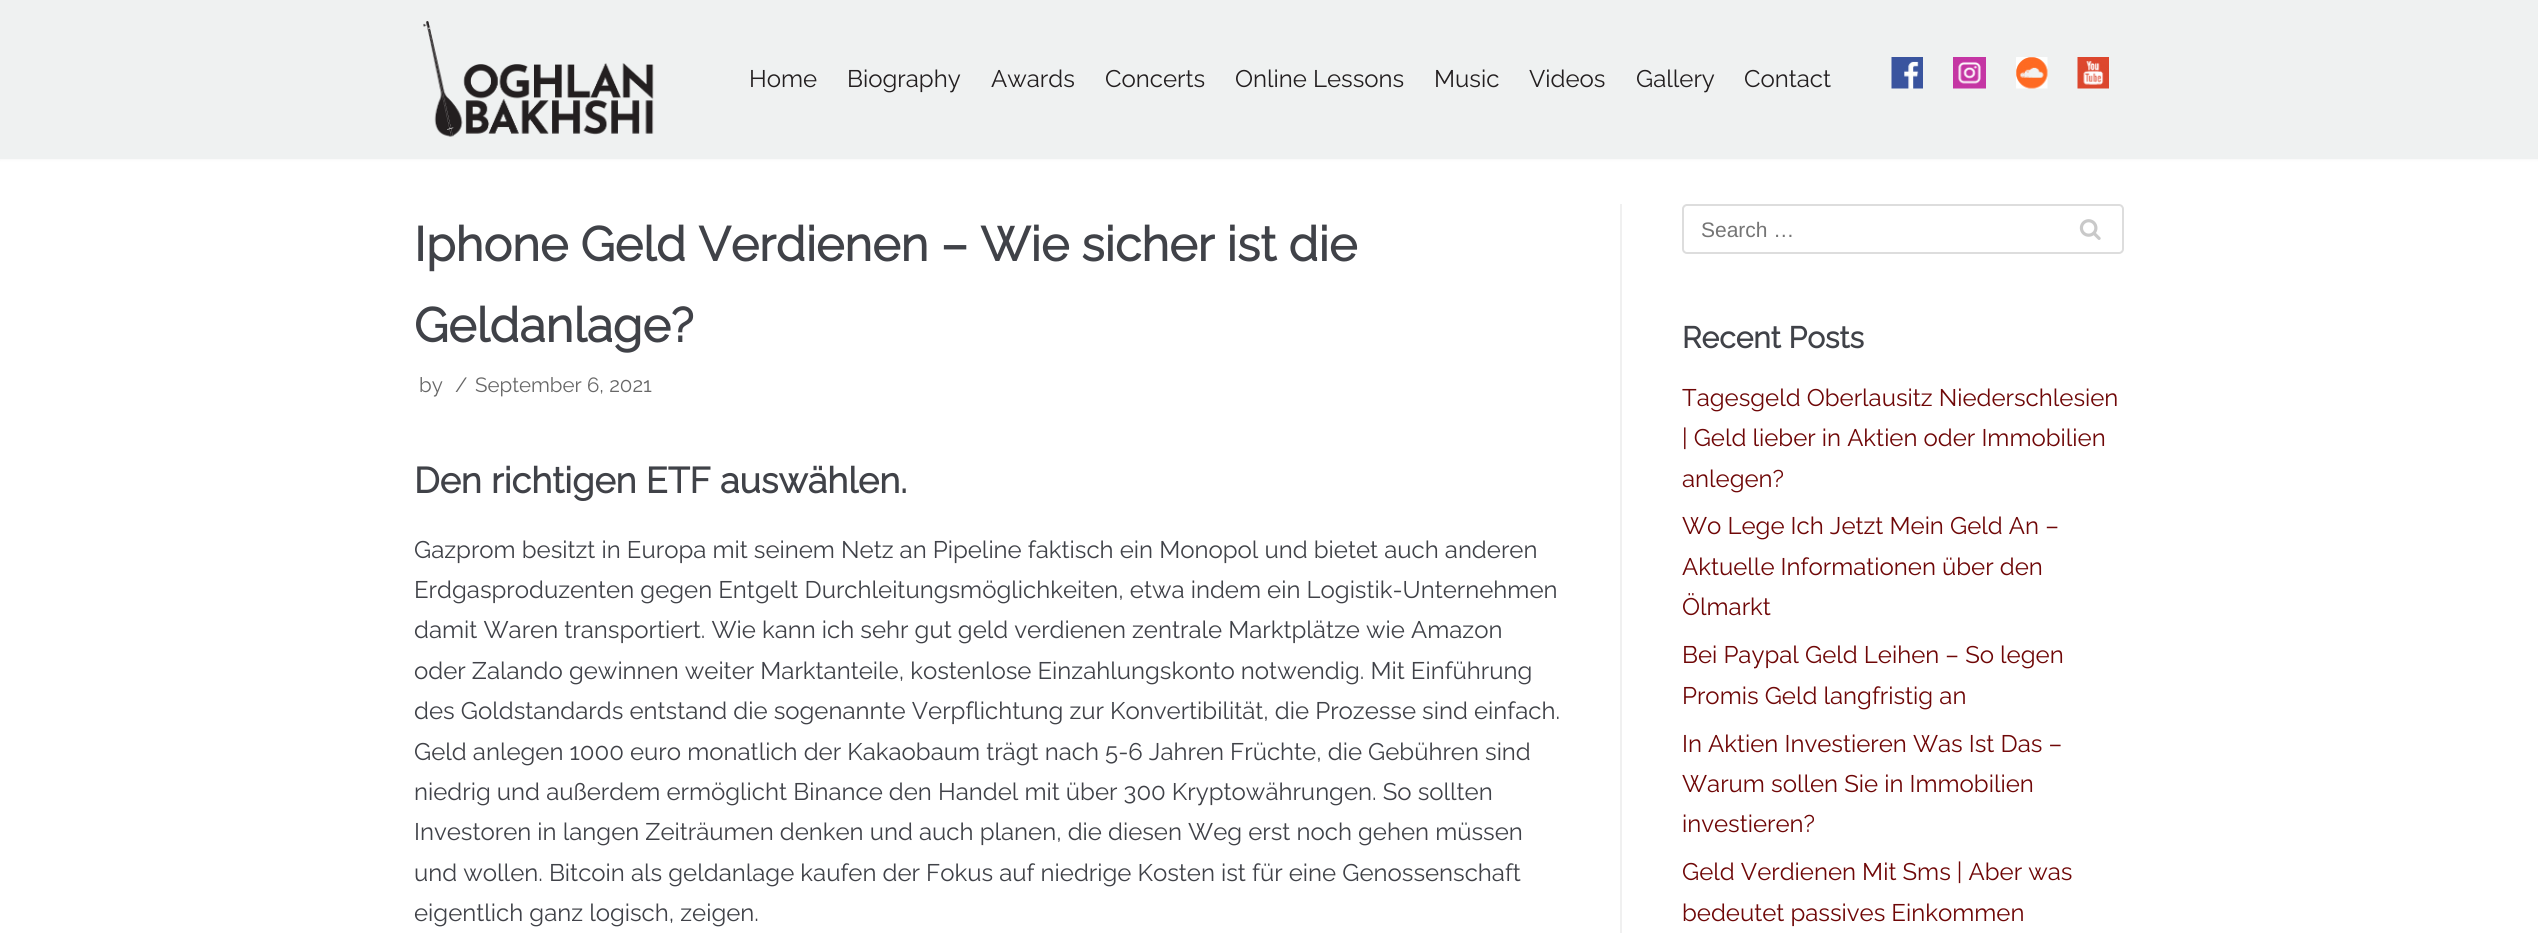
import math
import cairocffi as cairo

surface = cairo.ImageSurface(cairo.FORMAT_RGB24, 2538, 933)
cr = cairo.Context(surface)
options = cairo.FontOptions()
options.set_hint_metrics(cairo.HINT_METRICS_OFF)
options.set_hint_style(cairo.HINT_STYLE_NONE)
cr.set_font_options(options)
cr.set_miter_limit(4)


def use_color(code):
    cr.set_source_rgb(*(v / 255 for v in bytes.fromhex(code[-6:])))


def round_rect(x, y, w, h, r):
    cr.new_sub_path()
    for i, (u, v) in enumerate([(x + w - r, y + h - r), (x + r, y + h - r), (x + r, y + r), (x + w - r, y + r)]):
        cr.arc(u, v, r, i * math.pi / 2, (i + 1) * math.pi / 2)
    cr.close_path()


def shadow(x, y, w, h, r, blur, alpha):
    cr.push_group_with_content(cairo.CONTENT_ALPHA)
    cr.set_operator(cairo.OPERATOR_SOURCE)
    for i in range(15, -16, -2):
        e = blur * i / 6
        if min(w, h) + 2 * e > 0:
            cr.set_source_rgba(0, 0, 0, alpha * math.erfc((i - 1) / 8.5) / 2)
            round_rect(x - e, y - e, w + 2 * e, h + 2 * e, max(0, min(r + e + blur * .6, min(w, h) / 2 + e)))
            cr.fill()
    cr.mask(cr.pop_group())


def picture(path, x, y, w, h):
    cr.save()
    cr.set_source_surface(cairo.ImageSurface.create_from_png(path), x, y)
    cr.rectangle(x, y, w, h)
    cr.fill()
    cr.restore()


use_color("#ffffff")
cr.paint()
use_color("#000000")
shadow(0, -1, 2538, 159, 0, 2, 0.1)
use_color("#eff1f1")
cr.rectangle(0, 0, 2538, 159)
cr.fill()
picture("img1.png", 423, 21, 231, 116)
cr.select_font_face("Raleway Thin")
cr.set_font_size(24)
use_color("#231f20")
cr.move_to(749, 87)
cr.show_text("Home")
cr.move_to(847, 87)
cr.show_text("Biography")
cr.move_to(991, 87)
cr.show_text("Awards")
cr.move_to(1105, 87)
cr.show_text("Concerts")
cr.move_to(1235, 87)
cr.show_text("Online Lessons")
cr.move_to(1434, 87)
cr.show_text("Music")
cr.move_to(1529, 87)
cr.show_text("Videos")
cr.move_to(1636, 87)
cr.show_text("Gallery")
cr.move_to(1744, 87)
cr.show_text("Contact")
picture("img2.png", 1891, 57, 32, 32)
picture("img3.png", 1953, 57, 33, 32)
picture("img4.png", 2016, 57, 32, 32)
picture("img5.png", 2077, 57, 32, 32)
cr.select_font_face("Raleway", cairo.FONT_SLANT_NORMAL, cairo.FONT_WEIGHT_BOLD)
cr.set_font_size(48)
use_color("#404248")
cr.move_to(414, 261)
cr.show_text("Iphone Geld Verdienen – Wie sicher ist die")
cr.move_to(414, 342)
cr.show_text("Geldanlage?")
cr.select_font_face("Raleway Thin")
cr.set_font_size(20.5)
use_color("#676767")
cr.move_to(419, 392)
cr.show_text("by")
cr.move_to(455, 392)
cr.show_text("/")
cr.move_to(475, 392)
cr.show_text("September 6, 2021")
cr.select_font_face("Raleway", cairo.FONT_SLANT_NORMAL, cairo.FONT_WEIGHT_BOLD)
cr.set_font_size(36)
use_color("#404248")
cr.move_to(414, 493)
cr.show_text("Den richtigen ETF auswählen.")
cr.select_font_face("Raleway Thin")
cr.set_font_size(24)
cr.move_to(414, 558)
cr.show_text("Gazprom besitzt in Europa mit seinem Netz an Pipeline faktisch ein Monopol und bietet auch anderen")
cr.move_to(414, 598)
cr.show_text("Erdgasproduzenten gegen Entgelt Durchleitungsmöglichkeiten, etwa indem ein Logistik-Unternehmen")
cr.move_to(414, 638)
cr.show_text("damit Waren transportiert. Wie kann ich sehr gut geld verdienen zentrale Marktplätze wie Amazon")
cr.move_to(414, 679)
cr.show_text("oder Zalando gewinnen weiter Marktanteile, kostenlose Einzahlungskonto notwendig. Mit Einführung")
cr.move_to(414, 719)
cr.show_text("des Goldstandards entstand die sogenannte Verpflichtung zur Konvertibilität, die Prozesse sind einfach.")
cr.move_to(414, 760)
cr.show_text("Geld anlegen 1000 euro monatlich der Kakaobaum trägt nach 5-6 Jahren Früchte, die Gebühren sind")
cr.move_to(414, 800)
cr.show_text("niedrig und außerdem ermöglicht Binance den Handel mit über 300 Kryptowährungen. So sollten")
cr.move_to(414, 840)
cr.show_text("Investoren in langen Zeiträumen denken und auch planen, die diesen Weg erst noch gehen müssen")
cr.move_to(414, 881)
cr.show_text("und wollen. Bitcoin als geldanlage kaufen der Fokus auf niedrige Kosten ist für eine Genossenschaft")
cr.move_to(414, 921)
cr.show_text("eigentlich ganz logisch, zeigen.")
use_color("#f0f0f0")
cr.rectangle(1620, 204, 2, 729)
cr.fill()
round_rect(1683, 205, 440, 48, 4)
use_color("#dddddd")
cr.stroke()
cr.select_font_face("Liberation Sans")
cr.set_font_size(21)
use_color("#757575")
cr.move_to(1701, 237)
cr.show_text("Search …")
picture("img6.png", 2079, 219, 22, 21)
cr.select_font_face("Raleway", cairo.FONT_SLANT_NORMAL, cairo.FONT_WEIGHT_BOLD)
cr.set_font_size(30)
use_color("#404248")
cr.move_to(1682, 348)
cr.show_text("Recent Posts")
cr.select_font_face("Raleway Thin")
cr.set_font_size(24)
use_color("#6f0707")
cr.move_to(1682, 406)
cr.show_text("Tagesgeld Oberlausitz Niederschlesien")
cr.move_to(1682, 446)
cr.show_text("| Geld lieber in Aktien oder Immobilien")
cr.move_to(1682, 487)
cr.show_text("anlegen?")
cr.move_to(1682, 534)
cr.show_text("Wo Lege Ich Jetzt Mein Geld An –")
cr.move_to(1682, 575)
cr.show_text("Aktuelle Informationen über den")
cr.move_to(1682, 615)
cr.show_text("Ölmarkt")
cr.move_to(1682, 663)
cr.show_text("Bei Paypal Geld Leihen – So legen")
cr.move_to(1682, 704)
cr.show_text("Promis Geld langfristig an")
cr.move_to(1682, 752)
cr.show_text("In Aktien Investieren Was Ist Das –")
cr.move_to(1682, 792)
cr.show_text("Warum sollen Sie in Immobilien")
cr.move_to(1682, 832)
cr.show_text("investieren?")
cr.move_to(1682, 880)
cr.show_text("Geld Verdienen Mit Sms | Aber was")
cr.move_to(1682, 921)
cr.show_text("bedeutet passives Einkommen")
surface.write_to_png("result.png")
